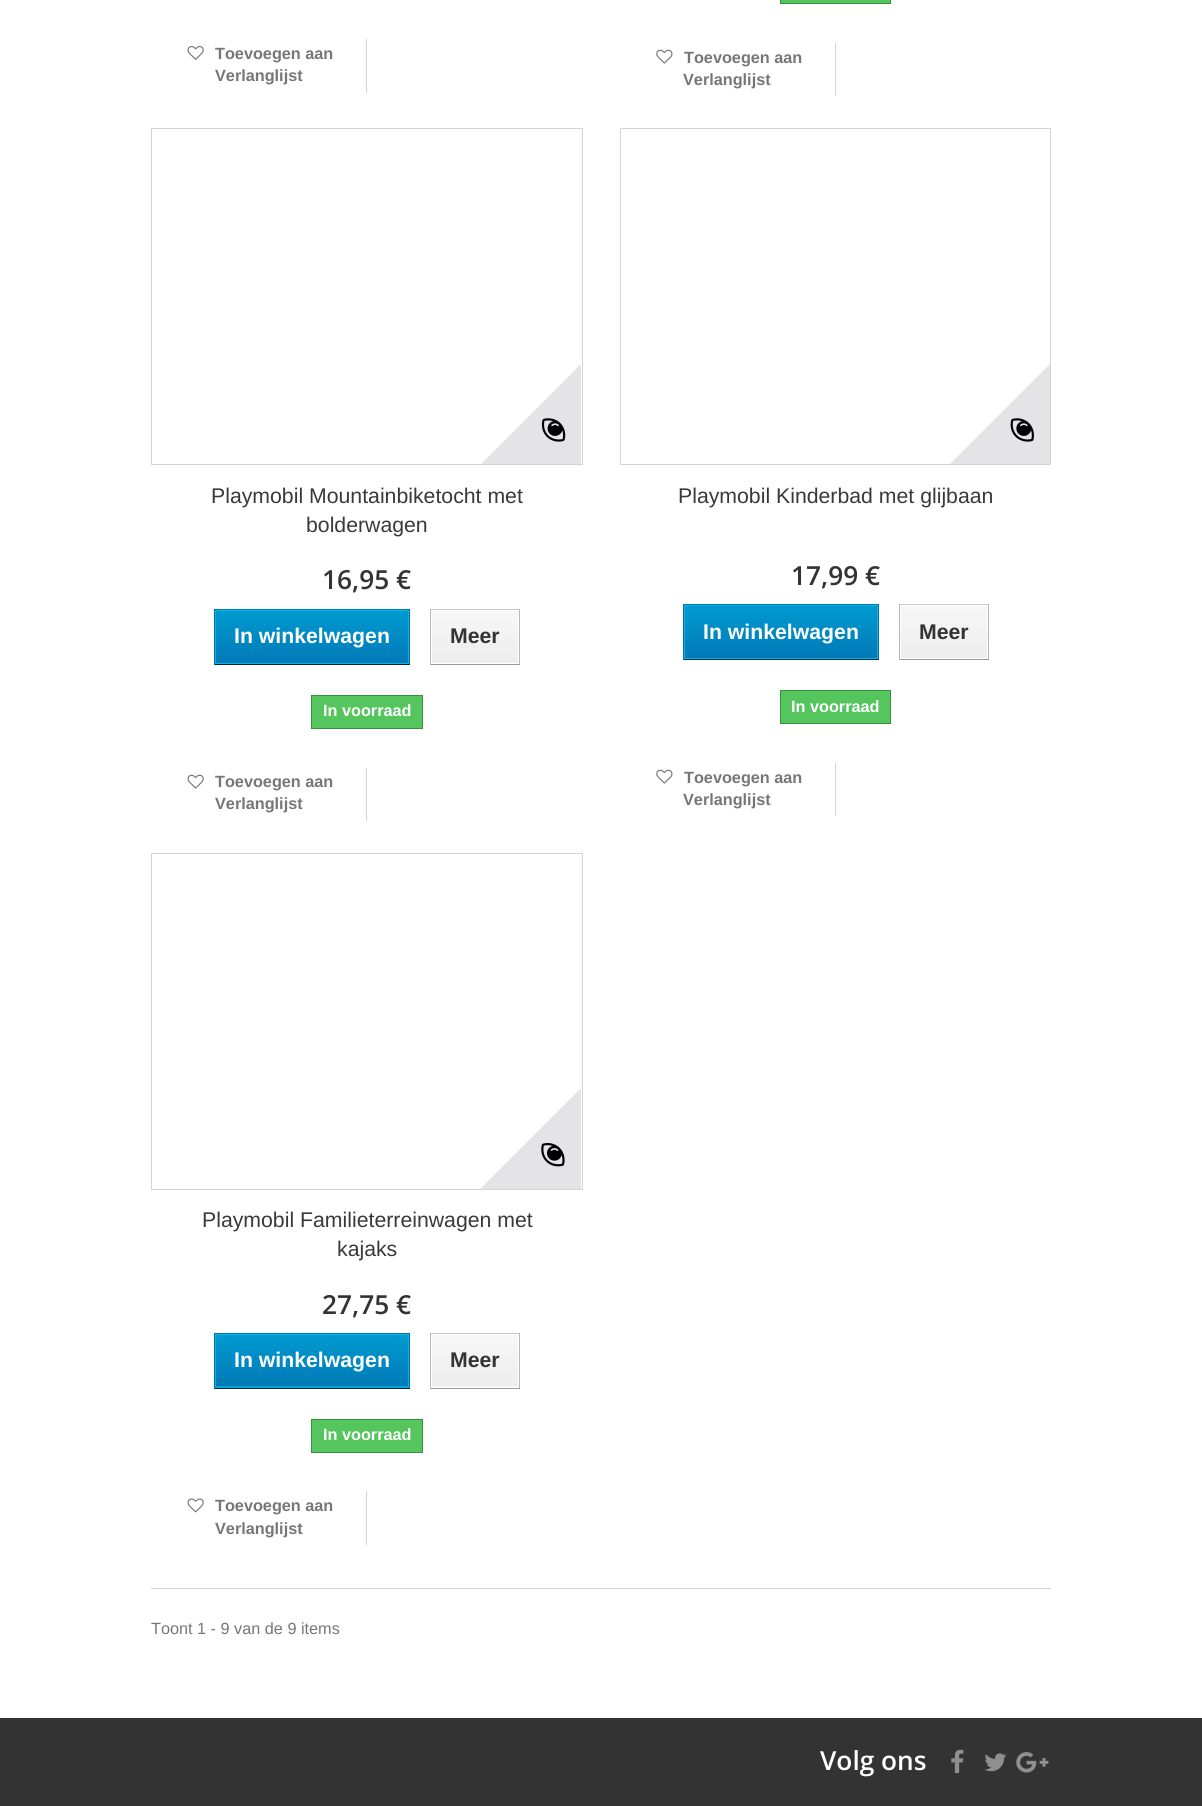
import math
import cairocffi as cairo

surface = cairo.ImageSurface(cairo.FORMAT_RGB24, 1202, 1806)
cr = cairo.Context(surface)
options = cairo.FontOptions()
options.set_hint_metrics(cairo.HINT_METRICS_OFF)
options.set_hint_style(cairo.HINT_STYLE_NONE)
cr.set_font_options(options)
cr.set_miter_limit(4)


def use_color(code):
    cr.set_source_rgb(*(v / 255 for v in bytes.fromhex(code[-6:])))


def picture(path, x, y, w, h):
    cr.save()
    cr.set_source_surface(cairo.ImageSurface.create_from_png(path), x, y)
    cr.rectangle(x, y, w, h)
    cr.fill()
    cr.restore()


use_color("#ffffff")
cr.paint()
use_color("#d6d4d4")
cr.rectangle(366, 39, 1, 54)
cr.fill()
picture("img1.png", 187, 46, 17, 14)
cr.select_font_face("Liberation Sans", cairo.FONT_SLANT_NORMAL, cairo.FONT_WEIGHT_BOLD)
cr.set_font_size(16.25)
use_color("#777676")
cr.move_to(215, 59)
cr.show_text("Toevoegen aan")
cr.move_to(215, 81)
cr.show_text("Verlanglijst")
use_color("#55c65e")
cr.rectangle(780.5, -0.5, 110, 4)
cr.fill_preserve()
use_color("#36943e")
cr.set_line_width(1)
cr.stroke()
use_color("#d6d4d4")
cr.rectangle(835, 43, 1, 53)
cr.fill()
picture("img2.png", 656, 49, 17, 15)
use_color("#777676")
cr.move_to(684, 63)
cr.show_text("Toevoegen aan")
cr.move_to(683, 85)
cr.show_text("Verlanglijst")
cr.rectangle(151.5, 128.5, 431, 336)
use_color("#d6d4d4")
cr.stroke()
cr.save()
cr.rectangle(313, 270, 268, 194)
cr.clip()
use_color("#e4e4e6")
cr.new_path()
cr.move_to(588, 357)
cr.line_to(663, 432)
cr.line_to(548, 547)
cr.line_to(473, 472)
cr.close_path()
cr.fill()
cr.restore()
picture("img3.png", 541, 418, 25, 24)
cr.select_font_face("Liberation Sans")
cr.set_font_size(21.25)
use_color("#3a3939")
cr.move_to(211, 503)
cr.show_text("Playmobil Mountainbiketocht met")
cr.move_to(306, 532)
cr.show_text("bolderwagen")
cr.select_font_face("Open Sans SemiBold")
cr.set_font_size(26.25)
use_color("#333333")
cr.move_to(322, 589)
cr.show_text("16,95 €")
use_color("#0079b6")
cr.rectangle(214, 609, 196, 1)
cr.fill()
use_color("#006fa8")
cr.rectangle(409, 609, 1, 56)
cr.fill()
use_color("#012740")
cr.rectangle(214, 664, 196, 1)
cr.fill()
use_color("#006fa8")
cr.rectangle(214, 609, 1, 56)
cr.fill()
gradient = cairo.LinearGradient(312, 611, 312, 663)
gradient.add_color_stop_rgba(0, 0, 0.604, 0.816, 1)
gradient.add_color_stop_rgba(1, 0, 0.478, 0.718, 1)
cr.set_source(gradient)
cr.rectangle(216, 611, 192, 52)
cr.fill()
cr.rectangle(215.5, 610.5, 193, 53)
use_color("#06b2e6")
cr.stroke()
cr.select_font_face("Liberation Sans", cairo.FONT_SLANT_NORMAL, cairo.FONT_WEIGHT_BOLD)
cr.set_font_size(21.25)
use_color("#ffffff")
cr.move_to(234, 643)
cr.show_text("In winkelwagen")
use_color("#cacaca")
cr.rectangle(430, 609, 90, 1)
cr.fill()
use_color("#b7b7b7")
cr.rectangle(519, 609, 1, 56)
cr.fill()
use_color("#9a9a9a")
cr.rectangle(430, 664, 90, 1)
cr.fill()
use_color("#b7b7b7")
cr.rectangle(430, 609, 1, 56)
cr.fill()
gradient = cairo.LinearGradient(475, 611, 475, 663)
gradient.add_color_stop_rgba(0, 0.969, 0.969, 0.969, 1)
gradient.add_color_stop_rgba(1, 0.929, 0.929, 0.929, 1)
cr.set_source(gradient)
cr.rectangle(432, 611, 86, 52)
cr.fill()
use_color("#333333")
cr.move_to(450, 643)
cr.show_text("Meer")
use_color("#55c65e")
cr.rectangle(311.5, 695.5, 111, 33)
cr.fill_preserve()
use_color("#36943e")
cr.stroke()
cr.set_font_size(16.25)
use_color("#ffffff")
cr.move_to(323, 716)
cr.show_text("In voorraad")
use_color("#d6d4d4")
cr.rectangle(366, 768, 1, 53)
cr.fill()
picture("img4.png", 187, 774, 17, 15)
use_color("#777676")
cr.move_to(215, 787)
cr.show_text("Toevoegen aan")
cr.move_to(215, 809)
cr.show_text("Verlanglijst")
cr.rectangle(620.5, 128.5, 430, 336)
use_color("#d6d4d4")
cr.stroke()
cr.save()
cr.rectangle(781, 270, 269, 194)
cr.clip()
use_color("#e4e4e6")
cr.new_path()
cr.move_to(1057, 357)
cr.line_to(1132, 432)
cr.line_to(1017, 547)
cr.line_to(942, 472)
cr.close_path()
cr.fill()
cr.restore()
picture("img5.png", 1010, 418, 24, 24)
cr.select_font_face("Liberation Sans")
cr.set_font_size(21.25)
use_color("#3a3939")
cr.move_to(678, 503)
cr.show_text("Playmobil Kinderbad met glijbaan")
cr.select_font_face("Open Sans SemiBold")
cr.set_font_size(26.25)
use_color("#333333")
cr.move_to(791, 585)
cr.show_text("17,99 €")
use_color("#0079b6")
cr.rectangle(683, 604, 196, 1)
cr.fill()
use_color("#006fa8")
cr.rectangle(878, 604, 1, 56)
cr.fill()
use_color("#012740")
cr.rectangle(683, 659, 196, 1)
cr.fill()
use_color("#006fa8")
cr.rectangle(683, 604, 1, 56)
cr.fill()
gradient = cairo.LinearGradient(781, 606, 781, 658)
gradient.add_color_stop_rgba(0, 0, 0.604, 0.816, 1)
gradient.add_color_stop_rgba(1, 0, 0.478, 0.718, 1)
cr.set_source(gradient)
cr.rectangle(685, 606, 192, 52)
cr.fill()
cr.rectangle(684.5, 605.5, 193, 53)
use_color("#06b2e6")
cr.stroke()
cr.select_font_face("Liberation Sans", cairo.FONT_SLANT_NORMAL, cairo.FONT_WEIGHT_BOLD)
cr.set_font_size(21.25)
use_color("#ffffff")
cr.move_to(703, 639)
cr.show_text("In winkelwagen")
use_color("#cacaca")
cr.rectangle(899, 604, 90, 1)
cr.fill()
use_color("#b7b7b7")
cr.rectangle(988, 604, 1, 56)
cr.fill()
use_color("#9a9a9a")
cr.rectangle(899, 659, 90, 1)
cr.fill()
use_color("#b7b7b7")
cr.rectangle(899, 604, 1, 56)
cr.fill()
gradient = cairo.LinearGradient(944, 606, 944, 658)
gradient.add_color_stop_rgba(0, 0.969, 0.969, 0.969, 1)
gradient.add_color_stop_rgba(1, 0.929, 0.929, 0.929, 1)
cr.set_source(gradient)
cr.rectangle(901, 606, 86, 52)
cr.fill()
use_color("#333333")
cr.move_to(919, 639)
cr.show_text("Meer")
use_color("#55c65e")
cr.rectangle(780.5, 690.5, 110, 33)
cr.fill_preserve()
use_color("#36943e")
cr.stroke()
cr.set_font_size(16.25)
use_color("#ffffff")
cr.move_to(791, 712)
cr.show_text("In voorraad")
use_color("#d6d4d4")
cr.rectangle(835, 763, 1, 53)
cr.fill()
picture("img2.png", 656, 769, 17, 15)
use_color("#777676")
cr.move_to(684, 783)
cr.show_text("Toevoegen aan")
cr.move_to(683, 805)
cr.show_text("Verlanglijst")
cr.rectangle(151.5, 853.5, 431, 336)
use_color("#d6d4d4")
cr.stroke()
cr.save()
cr.rectangle(313, 995, 268, 194)
cr.clip()
use_color("#e4e4e6")
cr.new_path()
cr.move_to(588, 1081)
cr.line_to(663, 1156)
cr.line_to(548, 1271)
cr.line_to(473, 1196)
cr.close_path()
cr.fill()
cr.restore()
picture("img6.png", 541, 1143, 24, 24)
cr.select_font_face("Liberation Sans")
cr.set_font_size(21.25)
use_color("#3a3939")
cr.move_to(202, 1227)
cr.show_text("Playmobil Familieterreinwagen met")
cr.move_to(337, 1256)
cr.show_text("kajaks")
cr.select_font_face("Open Sans SemiBold")
cr.set_font_size(26.25)
use_color("#333333")
cr.move_to(322, 1314)
cr.show_text("27,75 €")
use_color("#0079b6")
cr.rectangle(214, 1333, 196, 1)
cr.fill()
use_color("#006fa8")
cr.rectangle(409, 1333, 1, 56)
cr.fill()
use_color("#012740")
cr.rectangle(214, 1388, 196, 1)
cr.fill()
use_color("#006fa8")
cr.rectangle(214, 1333, 1, 56)
cr.fill()
use_color("#009ad0")
cr.rectangle(216, 1386, 192, 1)
cr.fill()
gradient = cairo.LinearGradient(312, 1335, 312, 1386)
gradient.add_color_stop_rgba(0, 0, 0.604, 0.816, 1)
gradient.add_color_stop_rgba(1, 0, 0.478, 0.718, 1)
cr.set_source(gradient)
cr.rectangle(216, 1335, 192, 51)
cr.fill()
cr.rectangle(215.5, 1334.5, 193, 53)
use_color("#06b2e6")
cr.stroke()
cr.select_font_face("Liberation Sans", cairo.FONT_SLANT_NORMAL, cairo.FONT_WEIGHT_BOLD)
cr.set_font_size(21.25)
use_color("#ffffff")
cr.move_to(234, 1367)
cr.show_text("In winkelwagen")
use_color("#cacaca")
cr.rectangle(430, 1333, 90, 1)
cr.fill()
use_color("#b7b7b7")
cr.rectangle(519, 1333, 1, 56)
cr.fill()
use_color("#9a9a9a")
cr.rectangle(430, 1388, 90, 1)
cr.fill()
use_color("#b7b7b7")
cr.rectangle(430, 1333, 1, 56)
cr.fill()
use_color("#f7f7f7")
cr.rectangle(432, 1386, 86, 1)
cr.fill()
gradient = cairo.LinearGradient(475, 1335, 475, 1386)
gradient.add_color_stop_rgba(0, 0.969, 0.969, 0.969, 1)
gradient.add_color_stop_rgba(1, 0.929, 0.929, 0.929, 1)
cr.set_source(gradient)
cr.rectangle(432, 1335, 86, 51)
cr.fill()
use_color("#333333")
cr.move_to(450, 1367)
cr.show_text("Meer")
use_color("#55c65e")
cr.rectangle(311.5, 1419.5, 111, 33)
cr.fill_preserve()
use_color("#36943e")
cr.stroke()
cr.set_font_size(16.25)
use_color("#ffffff")
cr.move_to(323, 1440)
cr.show_text("In voorraad")
use_color("#d6d4d4")
cr.rectangle(366, 1491, 1, 54)
cr.fill()
picture("img7.png", 187, 1498, 17, 15)
use_color("#777676")
cr.move_to(215, 1511)
cr.show_text("Toevoegen aan")
cr.move_to(215, 1534)
cr.show_text("Verlanglijst")
use_color("#d6d4d4")
cr.rectangle(151, 1588, 900, 1)
cr.fill()
cr.select_font_face("Liberation Sans")
use_color("#777676")
cr.move_to(151, 1634)
cr.show_text("Toont 1 - 9 van de 9 items")
use_color("#333333")
cr.rectangle(0, 1718, 1202, 88)
cr.fill()
cr.select_font_face("Open Sans SemiBold")
cr.set_font_size(26.25)
use_color("#ffffff")
cr.move_to(820, 1770)
cr.show_text("Volg ons")
picture("img8.png", 951, 1749, 13, 25)
picture("img9.png", 984, 1753, 23, 19)
picture("img10.png", 1016, 1752, 33, 21)
surface.write_to_png("result.png")
